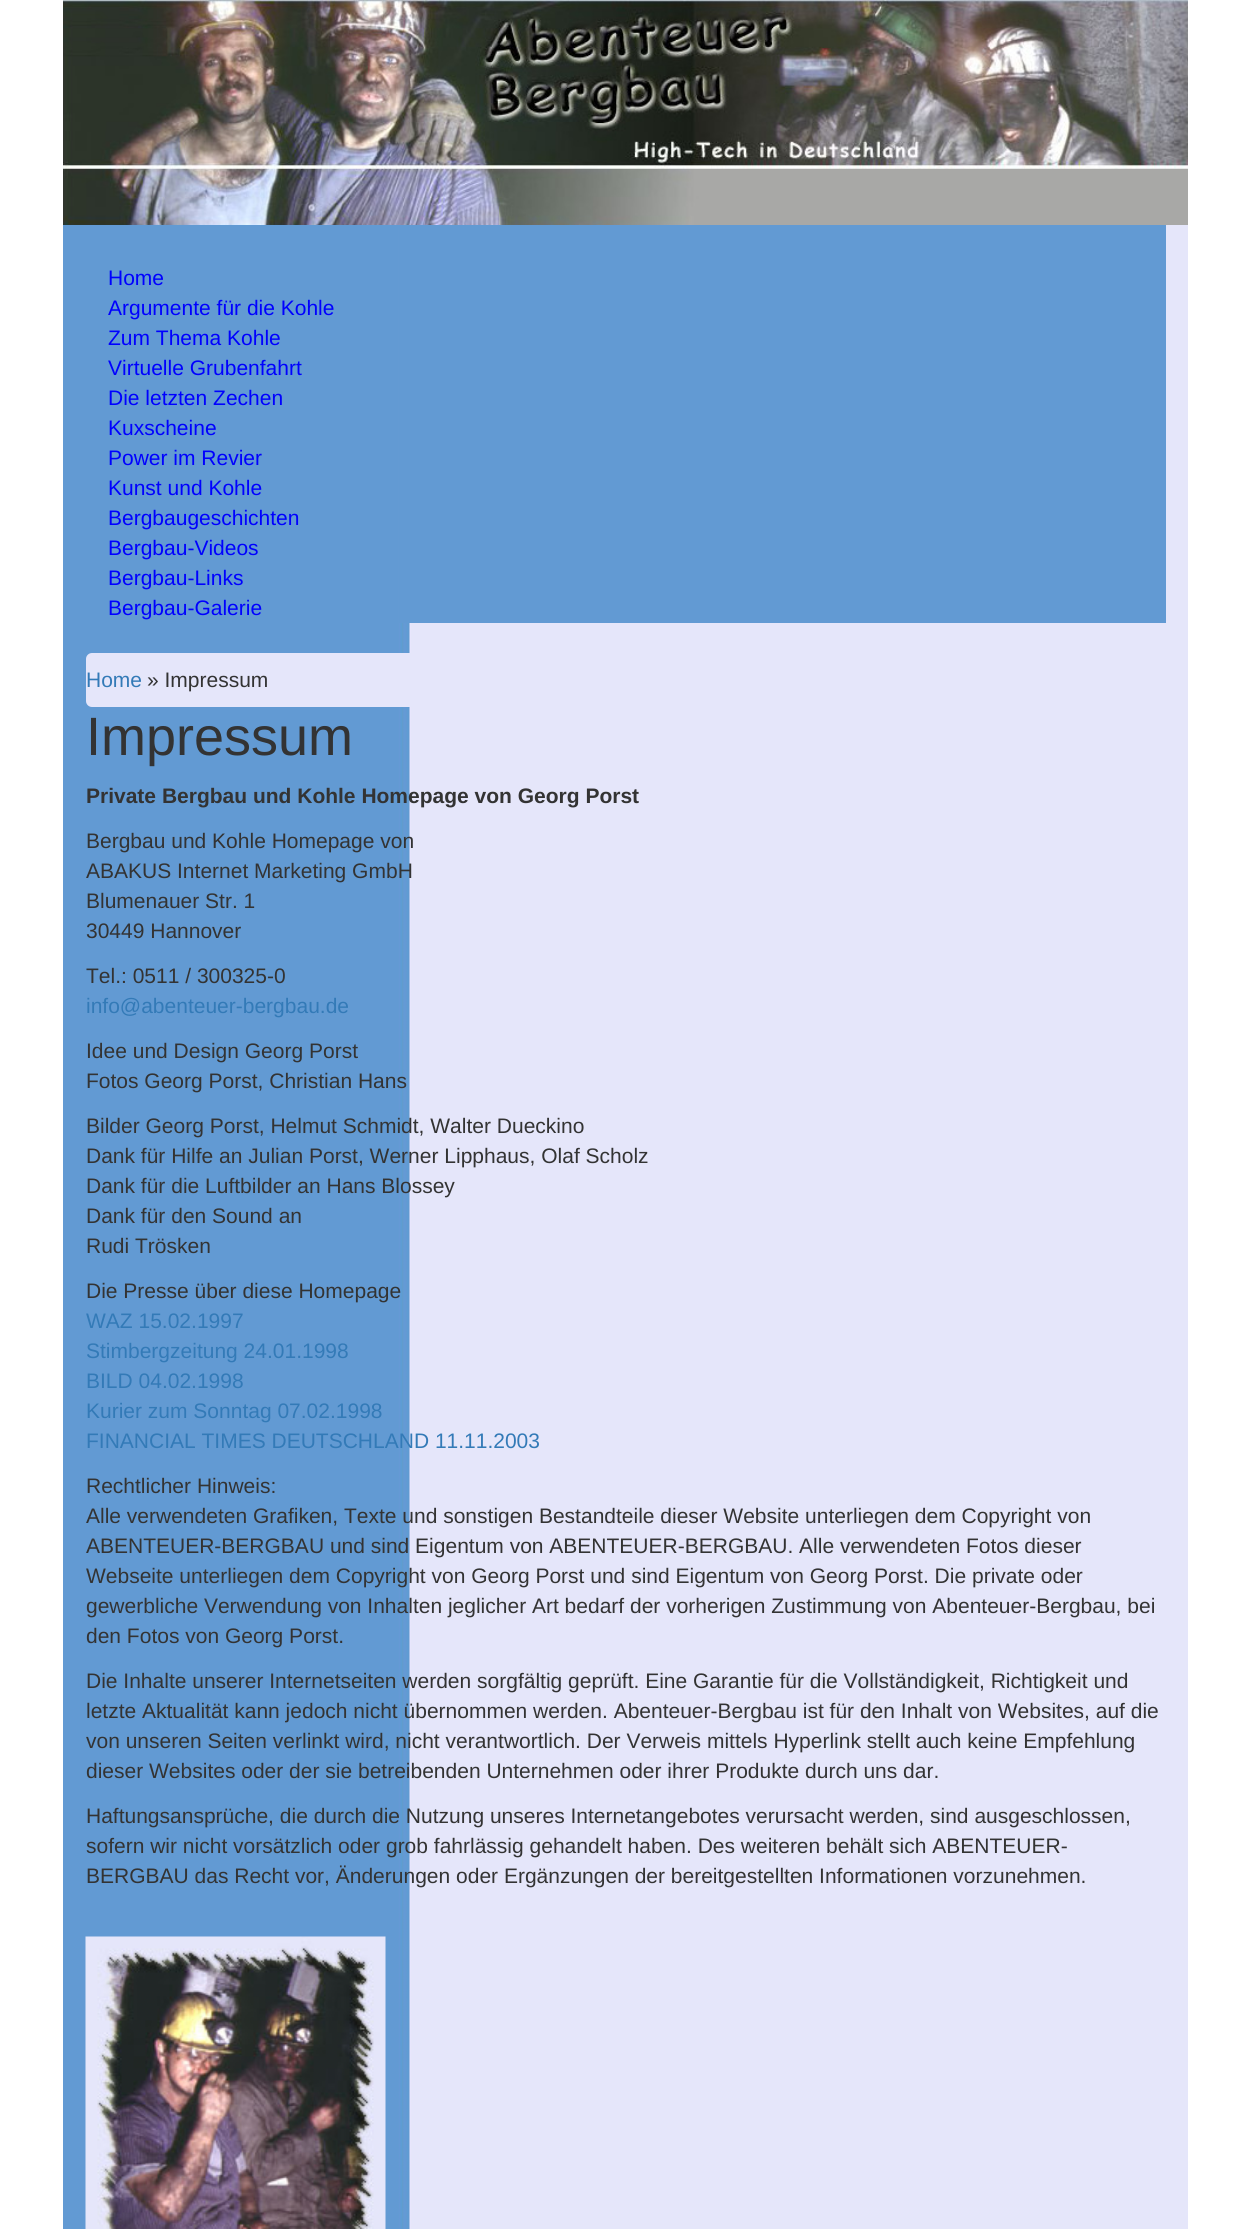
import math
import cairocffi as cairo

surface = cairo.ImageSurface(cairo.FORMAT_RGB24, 1250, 2229)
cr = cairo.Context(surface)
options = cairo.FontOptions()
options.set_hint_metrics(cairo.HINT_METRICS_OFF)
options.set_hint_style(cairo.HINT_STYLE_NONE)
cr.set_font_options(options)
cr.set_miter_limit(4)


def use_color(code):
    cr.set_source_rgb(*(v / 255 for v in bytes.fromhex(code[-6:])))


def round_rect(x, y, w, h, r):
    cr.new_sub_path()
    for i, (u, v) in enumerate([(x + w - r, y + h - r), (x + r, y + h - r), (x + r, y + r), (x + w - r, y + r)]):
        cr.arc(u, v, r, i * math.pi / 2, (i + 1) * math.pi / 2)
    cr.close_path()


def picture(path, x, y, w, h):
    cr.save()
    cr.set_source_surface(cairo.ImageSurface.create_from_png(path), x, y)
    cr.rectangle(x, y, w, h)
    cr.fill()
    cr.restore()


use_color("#ffffff")
cr.paint()
picture("img1.png", 63, 225, 1125, 2004)
picture("img2.png", 63, 0, 1125, 225)
use_color("#629ad3")
cr.rectangle(399, 225, 767, 398)
cr.fill()
cr.select_font_face("Liberation Sans")
cr.set_font_size(21)
use_color("#0000ff")
cr.move_to(108, 285)
cr.show_text("Home")
cr.move_to(108, 315)
cr.show_text("Argumente für die Kohle")
cr.move_to(108, 345)
cr.show_text("Zum Thema Kohle")
cr.move_to(108, 375)
cr.show_text("Virtuelle Grubenfahrt")
cr.move_to(108, 405)
cr.show_text("Die letzten Zechen")
cr.move_to(108, 435)
cr.show_text("Kuxscheine")
cr.move_to(108, 465)
cr.show_text("Power im Revier")
cr.move_to(108, 495)
cr.show_text("Kunst und Kohle")
cr.move_to(108, 525)
cr.show_text("Bergbaugeschichten")
cr.move_to(108, 555)
cr.show_text("Bergbau-Videos")
cr.move_to(108, 585)
cr.show_text("Bergbau-Links")
cr.move_to(108, 615)
cr.show_text("Bergbau-Galerie")
use_color("#e5e6fa")
round_rect(86, 653, 1080, 54, 6)
cr.fill()
use_color("#337ab7")
cr.move_to(86, 687)
cr.show_text("Home")
use_color("#333333")
cr.move_to(147, 687)
cr.show_text("» Impressum")
cr.set_font_size(54)
cr.move_to(86, 755)
cr.show_text("Impressum")
cr.select_font_face("Liberation Sans", cairo.FONT_SLANT_NORMAL, cairo.FONT_WEIGHT_BOLD)
cr.set_font_size(21)
cr.move_to(86, 803)
cr.show_text("Private Bergbau und Kohle Homepage von Georg Porst")
cr.select_font_face("Liberation Sans")
cr.move_to(86, 848)
cr.show_text("Bergbau und Kohle Homepage von")
cr.move_to(86, 878)
cr.show_text("ABAKUS Internet Marketing GmbH")
cr.move_to(86, 908)
cr.show_text("Blumenauer Str. 1")
cr.move_to(86, 938)
cr.show_text("30449 Hannover")
cr.move_to(86, 983)
cr.show_text("Tel.: 0511 / 300325-0")
use_color("#337ab7")
cr.move_to(86, 1013)
cr.show_text("info@abenteuer-bergbau.de")
use_color("#333333")
cr.move_to(86, 1058)
cr.show_text("Idee und Design Georg Porst")
cr.move_to(86, 1088)
cr.show_text("Fotos Georg Porst, Christian Hans")
cr.move_to(86, 1133)
cr.show_text("Bilder Georg Porst, Helmut Schmidt, Walter Dueckino")
cr.move_to(86, 1163)
cr.show_text("Dank für Hilfe an Julian Porst, Werner Lipphaus, Olaf Scholz")
cr.move_to(86, 1193)
cr.show_text("Dank für die Luftbilder an Hans Blossey")
cr.move_to(86, 1223)
cr.show_text("Dank für den Sound an")
cr.move_to(86, 1253)
cr.show_text("Rudi Trösken")
cr.move_to(86, 1298)
cr.show_text("Die Presse über diese Homepage")
use_color("#337ab7")
cr.move_to(86, 1328)
cr.show_text("WAZ 15.02.1997")
cr.move_to(86, 1358)
cr.show_text("Stimbergzeitung 24.01.1998")
cr.move_to(86, 1388)
cr.show_text("BILD 04.02.1998")
cr.move_to(86, 1418)
cr.show_text("Kurier zum Sonntag 07.02.1998")
cr.move_to(86, 1448)
cr.show_text("FINANCIAL TIMES DEUTSCHLAND 11.11.2003")
use_color("#333333")
cr.move_to(86, 1493)
cr.show_text("Rechtlicher Hinweis:")
cr.move_to(86, 1523)
cr.show_text("Alle verwendeten Grafiken, Texte und sonstigen Bestandteile dieser Website unterliegen dem Copyright von")
cr.move_to(86, 1553)
cr.show_text("ABENTEUER-BERGBAU und sind Eigentum von ABENTEUER-BERGBAU. Alle verwendeten Fotos dieser")
cr.move_to(86, 1583)
cr.show_text("Webseite unterliegen dem Copyright von Georg Porst und sind Eigentum von Georg Porst. Die private oder")
cr.move_to(86, 1613)
cr.show_text("gewerbliche Verwendung von Inhalten jeglicher Art bedarf der vorherigen Zustimmung von Abenteuer-Bergbau, bei")
cr.move_to(86, 1643)
cr.show_text("den Fotos von Georg Porst.")
cr.move_to(86, 1688)
cr.show_text("Die Inhalte unserer Internetseiten werden sorgfältig geprüft. Eine Garantie für die Vollständigkeit, Richtigkeit und")
cr.move_to(86, 1718)
cr.show_text("letzte Aktualität kann jedoch nicht übernommen werden. Abenteuer-Bergbau ist für den Inhalt von Websites, auf die")
cr.move_to(86, 1748)
cr.show_text("von unseren Seiten verlinkt wird, nicht verantwortlich. Der Verweis mittels Hyperlink stellt auch keine Empfehlung")
cr.move_to(86, 1778)
cr.show_text("dieser Websites oder der sie betreibenden Unternehmen oder ihrer Produkte durch uns dar.")
cr.move_to(86, 1823)
cr.show_text("Haftungsansprüche, die durch die Nutzung unseres Internetangebotes verursacht werden, sind ausgeschlossen,")
cr.move_to(86, 1853)
cr.show_text("sofern wir nicht vorsätzlich oder grob fahrlässig gehandelt haben. Des weiteren behält sich ABENTEUER-")
cr.move_to(86, 1883)
cr.show_text("BERGBAU das Recht vor, Änderungen oder Ergänzungen der bereitgestellten Informationen vorzunehmen.")
picture("img3.png", 85, 1936, 301, 293)
surface.write_to_png("result.png")
